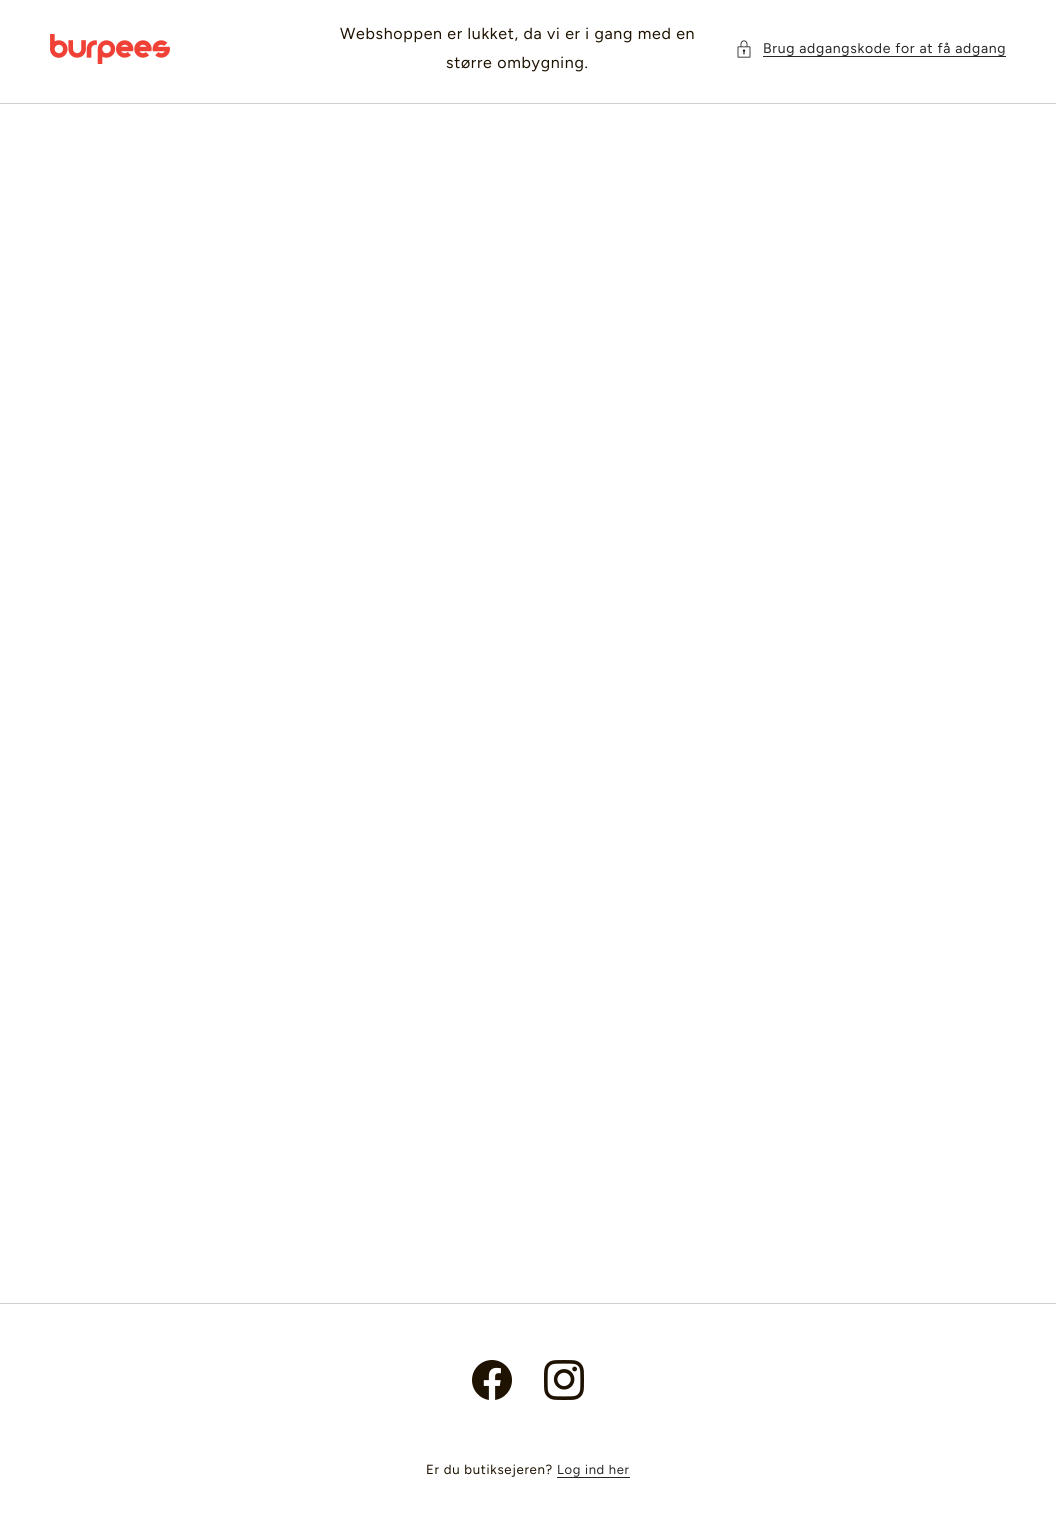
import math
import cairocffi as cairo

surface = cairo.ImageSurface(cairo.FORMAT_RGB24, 1056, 1522)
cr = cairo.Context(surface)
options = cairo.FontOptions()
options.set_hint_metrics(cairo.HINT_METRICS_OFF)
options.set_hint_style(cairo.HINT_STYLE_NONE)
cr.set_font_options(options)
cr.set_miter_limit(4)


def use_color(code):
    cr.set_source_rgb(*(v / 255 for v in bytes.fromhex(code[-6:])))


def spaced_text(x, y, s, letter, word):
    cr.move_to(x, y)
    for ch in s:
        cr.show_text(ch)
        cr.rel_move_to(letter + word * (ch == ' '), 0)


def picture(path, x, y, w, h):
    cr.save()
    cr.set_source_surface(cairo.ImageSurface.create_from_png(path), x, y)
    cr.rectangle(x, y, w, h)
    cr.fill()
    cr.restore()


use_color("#ffffff")
cr.paint()
picture("img1.png", 50, 34, 120, 30)
cr.select_font_face("Figtree")
cr.set_font_size(16)
use_color("#1e1201")
spaced_text(340, 39, "Webshoppen er lukket, da vi er i gang med en", 0.7, 0)
spaced_text(446, 68, "større ombygning.", 0.7, 0)
picture("img2.png", 737, 40, 14, 18)
cr.set_font_size(14)
use_color("#262626")
spaced_text(763, 53, "Brug adgangskode for at få adgang", 0.7, 0)
cr.rectangle(763, 56, 243, 1)
cr.fill()
use_color("#d2d0cc")
cr.rectangle(0, 103, 1056, 1)
cr.fill()
cr.rectangle(0, 1303, 1056, 1)
cr.fill()
picture("img3.png", 472, 1360, 40, 40)
picture("img4.png", 544, 1360, 40, 40)
cr.set_font_size(13.25)
use_color("#1e1201")
spaced_text(426, 1474, "Er du butiksejeren?", 0.7, 0)
cr.set_font_size(13)
use_color("#262626")
spaced_text(557, 1474, "Log ind her", 0.7, 0)
cr.rectangle(557, 1477, 73, 1)
cr.fill()
surface.write_to_png("result.png")
